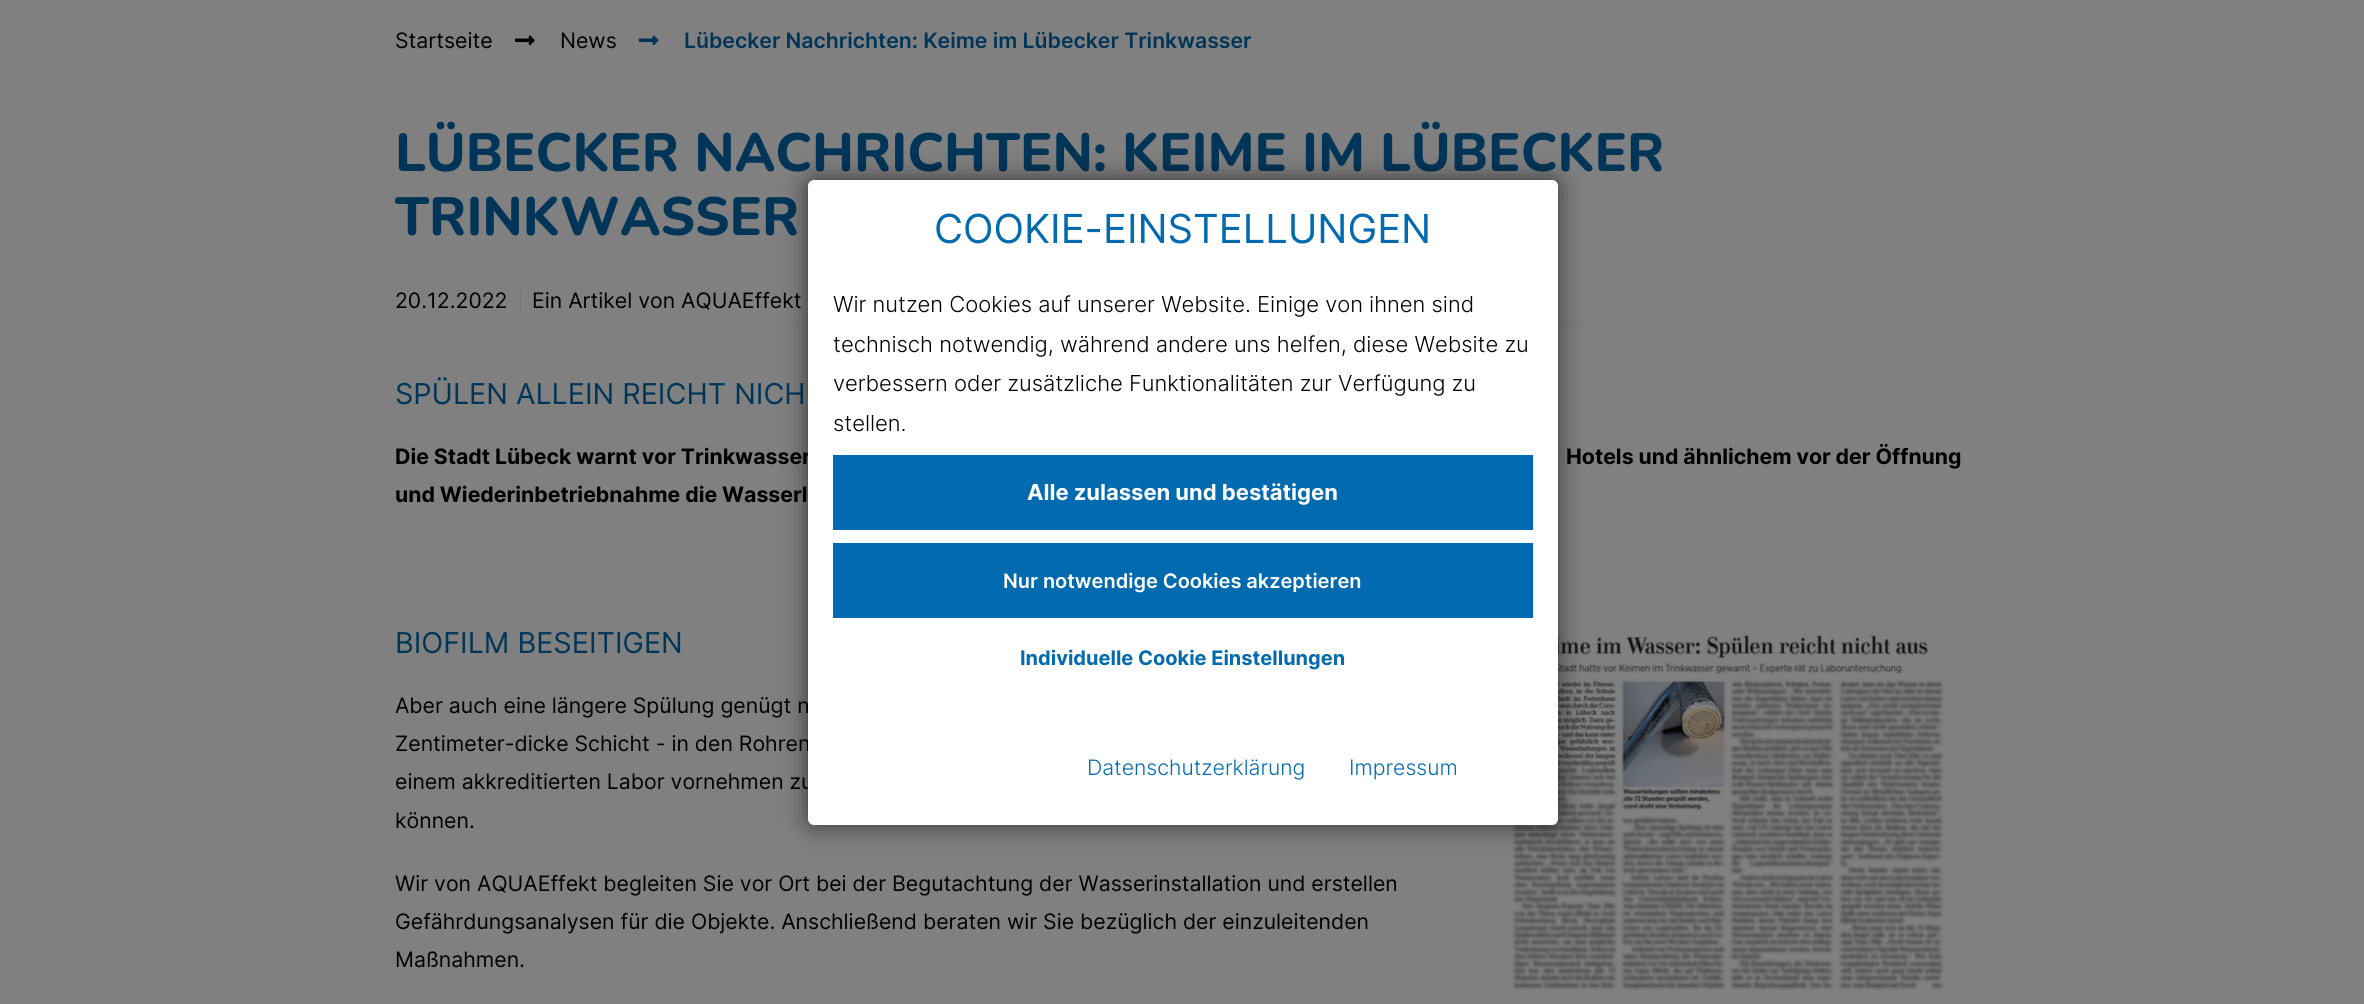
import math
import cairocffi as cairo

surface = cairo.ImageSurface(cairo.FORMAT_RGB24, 2364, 1004)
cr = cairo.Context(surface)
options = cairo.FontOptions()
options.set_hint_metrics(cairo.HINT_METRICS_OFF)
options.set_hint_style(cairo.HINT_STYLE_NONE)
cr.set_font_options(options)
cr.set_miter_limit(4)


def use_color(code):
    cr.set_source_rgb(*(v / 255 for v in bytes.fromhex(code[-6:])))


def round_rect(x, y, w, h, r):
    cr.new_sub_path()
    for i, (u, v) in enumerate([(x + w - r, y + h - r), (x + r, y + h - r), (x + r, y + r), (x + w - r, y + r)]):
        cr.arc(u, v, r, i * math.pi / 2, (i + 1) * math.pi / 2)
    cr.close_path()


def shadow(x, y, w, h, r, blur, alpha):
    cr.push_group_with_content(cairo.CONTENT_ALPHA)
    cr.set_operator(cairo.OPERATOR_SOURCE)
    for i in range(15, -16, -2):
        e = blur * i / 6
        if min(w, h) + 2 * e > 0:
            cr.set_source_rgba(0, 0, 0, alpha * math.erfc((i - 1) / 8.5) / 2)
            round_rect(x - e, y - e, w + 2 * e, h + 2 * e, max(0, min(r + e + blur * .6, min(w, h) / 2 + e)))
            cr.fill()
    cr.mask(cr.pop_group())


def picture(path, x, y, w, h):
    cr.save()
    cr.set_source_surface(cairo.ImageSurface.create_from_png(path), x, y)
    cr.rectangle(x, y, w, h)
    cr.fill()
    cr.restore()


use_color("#808080")
cr.paint()
cr.select_font_face("Inter")
cr.set_font_size(21.25)
use_color("#000000")
cr.move_to(395, 48)
cr.show_text("Startseite")
picture("img1.png", 515, 35, 20, 11)
cr.move_to(560, 48)
cr.show_text("News")
picture("img2.png", 638, 35, 21, 11)
cr.select_font_face("Inter SemiBold")
use_color("#013558")
cr.move_to(684, 48)
cr.show_text("Lübecker Nachrichten: Keime im Lübecker Trinkwasser")
cr.select_font_face("Nunito ExtraLight")
cr.set_font_size(53.75)
cr.move_to(395, 171)
cr.show_text("LÜBECKER NACHRICHTEN: KEIME IM LÜBECKER")
cr.move_to(395, 235)
cr.show_text("TRINKWASSER")
use_color("#7a7979")
cr.rectangle(395, 326, 1575, 1)
cr.fill()
cr.select_font_face("Inter")
cr.set_font_size(21.25)
use_color("#000000")
cr.move_to(395, 308)
cr.show_text("20.12.2022")
cr.move_to(532, 308)
cr.show_text("Ein Artikel von AQUAEffekt")
use_color("#7a7979")
cr.rectangle(520, 289, 1, 25)
cr.fill()
cr.set_font_size(28.75)
use_color("#013558")
cr.move_to(395, 404)
cr.show_text("SPÜLEN ALLEIN REICHT NICH")
cr.select_font_face("Inter", cairo.FONT_SLANT_NORMAL, cairo.FONT_WEIGHT_BOLD)
cr.set_font_size(21.25)
use_color("#000000")
cr.move_to(395, 464)
cr.show_text("Die Stadt Lübeck warnt vor Trinkwasser")
cr.move_to(1566, 464)
cr.show_text("Hotels und ähnlichem vor der Öffnung")
cr.move_to(395, 502)
cr.show_text("und Wiederinbetriebnahme die Wasserl")
cr.select_font_face("Inter")
cr.set_font_size(28.75)
use_color("#013558")
cr.move_to(395, 653)
cr.show_text("BIOFILM BESEITIGEN")
cr.set_font_size(21.25)
use_color("#000000")
cr.move_to(395, 713)
cr.show_text("Aber auch eine längere Spülung genügt n")
cr.move_to(395, 751)
cr.show_text("Zentimeter-dicke Schicht - in den Rohren")
cr.move_to(395, 789)
cr.show_text("einem akkreditierten Labor vornehmen zu")
cr.move_to(395, 828)
cr.show_text("können.")
cr.move_to(395, 891)
cr.show_text("Wir von AQUAEffekt begleiten Sie vor Ort bei der Begutachtung der Wasserinstallation und erstellen")
cr.move_to(395, 929)
cr.show_text("Gefährdungsanalysen für die Objekte. Anschließend beraten wir Sie bezüglich der einzuleitenden")
cr.move_to(395, 967)
cr.show_text("Maßnahmen.")
picture("img3.png", 1512, 634, 432, 357)
use_color("#000000")
shadow(808, 180, 750, 645, 6, 12.5, 0.6)
use_color("#ffffff")
round_rect(808, 180, 750, 645, 6)
cr.fill()
cr.set_font_size(40)
use_color("#026aaf")
cr.move_to(934, 243)
cr.show_text("COOKIE-EINSTELLUNGEN")
cr.select_font_face("Inter Light")
cr.set_font_size(22)
use_color("#000000")
cr.move_to(833, 312)
cr.show_text("Wir nutzen Cookies auf unserer Website. Einige von ihnen sind")
cr.move_to(833, 352)
cr.show_text("technisch notwendig, während andere uns helfen, diese Website zu")
cr.move_to(833, 391)
cr.show_text("verbessern oder zusätzliche Funktionalitäten zur Verfügung zu")
cr.move_to(833, 431)
cr.show_text("stellen.")
use_color("#026aaf")
cr.rectangle(833, 455, 700, 75)
cr.fill()
cr.select_font_face("Inter", cairo.FONT_SLANT_NORMAL, cairo.FONT_WEIGHT_BOLD)
use_color("#ffffff")
cr.move_to(1027, 500)
cr.show_text("Alle zulassen und bestätigen")
use_color("#026aaf")
cr.rectangle(833, 543, 700, 75)
cr.fill()
cr.select_font_face("Inter SemiBold")
cr.set_font_size(20)
use_color("#ffffff")
cr.move_to(1003, 588)
cr.show_text("Nur notwendige Cookies akzeptieren")
cr.select_font_face("Inter", cairo.FONT_SLANT_NORMAL, cairo.FONT_WEIGHT_BOLD)
use_color("#026aaf")
cr.move_to(1020, 665)
cr.show_text("Individuelle Cookie Einstellungen")
cr.select_font_face("Inter Light")
cr.set_font_size(21.25)
cr.move_to(1087, 775)
cr.show_text("Datenschutzerklärung")
cr.move_to(1349, 775)
cr.show_text("Impressum")
surface.write_to_png("result.png")
